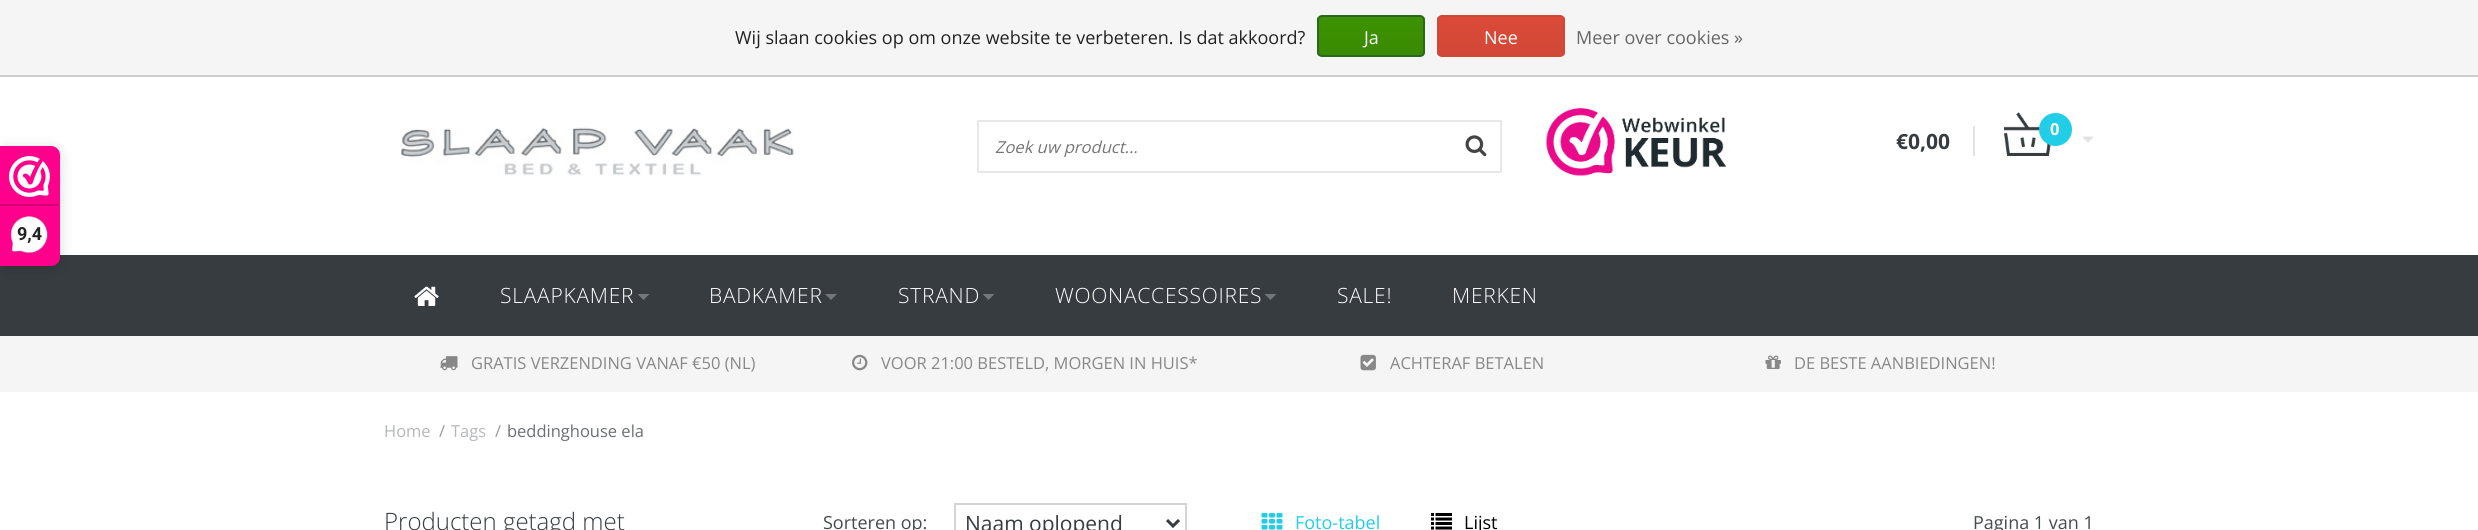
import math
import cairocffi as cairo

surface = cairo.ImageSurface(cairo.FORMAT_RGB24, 2478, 530)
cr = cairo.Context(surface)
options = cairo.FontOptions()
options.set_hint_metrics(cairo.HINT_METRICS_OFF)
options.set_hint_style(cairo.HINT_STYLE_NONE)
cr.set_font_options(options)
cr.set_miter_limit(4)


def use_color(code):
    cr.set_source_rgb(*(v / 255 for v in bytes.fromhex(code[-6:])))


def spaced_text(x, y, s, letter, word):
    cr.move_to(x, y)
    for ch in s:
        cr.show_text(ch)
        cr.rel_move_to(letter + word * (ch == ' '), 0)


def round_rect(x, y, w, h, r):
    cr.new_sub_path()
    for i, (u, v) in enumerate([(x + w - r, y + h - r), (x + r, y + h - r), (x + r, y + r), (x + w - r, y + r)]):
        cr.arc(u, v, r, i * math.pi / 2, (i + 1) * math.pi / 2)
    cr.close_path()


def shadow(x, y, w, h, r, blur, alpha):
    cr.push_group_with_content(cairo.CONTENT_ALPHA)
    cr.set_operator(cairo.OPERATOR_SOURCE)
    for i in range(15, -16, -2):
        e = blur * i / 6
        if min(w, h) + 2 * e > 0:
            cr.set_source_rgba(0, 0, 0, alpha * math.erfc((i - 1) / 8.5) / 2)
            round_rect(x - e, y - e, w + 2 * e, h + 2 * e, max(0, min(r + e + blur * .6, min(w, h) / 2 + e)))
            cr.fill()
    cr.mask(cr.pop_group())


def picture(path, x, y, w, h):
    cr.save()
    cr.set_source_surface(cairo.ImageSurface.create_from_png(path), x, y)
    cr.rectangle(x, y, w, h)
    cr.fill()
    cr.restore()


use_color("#ffffff")
cr.paint()
use_color("#f5f5f5")
cr.rectangle(0, 0, 2478, 75)
cr.fill()
use_color("#cccccc")
cr.rectangle(0, 75, 2478, 2)
cr.fill()
cr.select_font_face("Open Sans")
cr.set_font_size(18)
use_color("#222222")
cr.move_to(735, 44)
cr.show_text("Wij slaan cookies op om onze website te verbeteren. Is dat akkoord?")
cr.save()
round_rect(1317, 15, 108, 42, 5)
cr.clip()
gradient = cairo.LinearGradient(1371, 16, 1371, 56)
gradient.add_color_stop_rgba(0, 0.235, 0.576, 0, 1)
gradient.add_color_stop_rgba(1, 0.224, 0.541, 0, 1)
cr.set_source(gradient)
cr.rectangle(1317, 17, 108, 39)
cr.fill()
cr.restore()
round_rect(1318, 16, 106, 40, 4)
use_color("#29691d")
cr.stroke()
use_color("#ffffff")
cr.move_to(1364, 44)
cr.show_text("Ja")
cr.save()
round_rect(1437, 15, 128, 42, 5)
cr.clip()
gradient = cairo.LinearGradient(1501, 16, 1501, 56)
gradient.add_color_stop_rgba(0, 0.863, 0.29, 0.22, 1)
gradient.add_color_stop_rgba(1, 0.82, 0.282, 0.212, 1)
cr.set_source(gradient)
cr.rectangle(1437, 17, 128, 39)
cr.fill()
cr.restore()
round_rect(1438, 16, 126, 40, 4)
use_color("#d14836")
cr.stroke()
use_color("#ffffff")
cr.move_to(1484, 44)
cr.show_text("Nee")
use_color("#666666")
cr.move_to(1576, 44)
cr.show_text("Meer over cookies »")
use_color("#363c3f")
cr.rectangle(0, 255, 2478, 81)
cr.fill()
use_color("#000000")
shadow(0, 149, 60, 120, 9, 7.5, 0.15)
use_color("#fe008c")
cr.new_path()
cr.move_to(0, 146)
cr.line_to(51, 146)
cr.curve_to(56, 146, 60, 150, 60, 155)
cr.line_to(60, 257)
cr.curve_to(60, 262, 56, 266, 51, 266)
cr.line_to(0, 266)
cr.close_path()
cr.fill()
picture("img1.png", 9, 156, 41, 41)
use_color("#d80077")
cr.rectangle(0, 204, 59, 2)
cr.fill()
picture("img2.png", 10, 216, 38, 38)
cr.select_font_face("Roboto", cairo.FONT_SLANT_NORMAL, cairo.FONT_WEIGHT_BOLD)
use_color("#222222")
cr.move_to(17, 240)
cr.show_text("9,4")
picture("img3.png", 401, 127, 393, 49)
round_rect(978, 121, 523, 51, 0.5)
use_color("#e8e8e8")
cr.stroke()
cr.select_font_face("Open Sans", cairo.FONT_SLANT_ITALIC)
cr.set_font_size(16.5)
use_color("#757575")
cr.move_to(995, 153)
cr.show_text("Zoek uw product...")
picture("img4.png", 1465, 135, 22, 22)
picture("img5.png", 1546, 108, 181, 68)
picture("img6.png", 2004, 112, 90, 44)
use_color("#e3e3e3")
cr.rectangle(1973, 126, 2, 30)
cr.fill()
use_color("#22cde7")
cr.arc(2055.5, 129.5, 16.5, 0, 2 * math.pi)
cr.fill()
cr.select_font_face("Open Sans", cairo.FONT_SLANT_NORMAL, cairo.FONT_WEIGHT_BOLD)
use_color("#ffffff")
cr.move_to(2050, 135)
cr.show_text("0")
cr.set_font_size(21)
use_color("#363c3f")
cr.move_to(1896, 149)
cr.show_text("€0,00")
picture("img7.png", 414, 286, 25, 20)
cr.select_font_face("Open Sans Light")
use_color("#ffffff")
spaced_text(500, 303, "SLAAPKAMER", 0.75, 0)
use_color("#727779")
cr.new_path()
cr.move_to(637.5, 294)
cr.line_to(649.5, 294)
cr.line_to(643.5, 300)
cr.close_path()
cr.fill()
use_color("#ffffff")
spaced_text(709, 303, "BADKAMER", 0.75, 0)
use_color("#727779")
cr.new_path()
cr.move_to(825, 294)
cr.line_to(837, 294)
cr.line_to(831, 300)
cr.close_path()
cr.fill()
use_color("#ffffff")
spaced_text(898, 303, "STRAND", 0.75, 0)
use_color("#727779")
cr.new_path()
cr.move_to(982.5, 294)
cr.line_to(994.5, 294)
cr.line_to(988.5, 300)
cr.close_path()
cr.fill()
use_color("#ffffff")
spaced_text(1055, 303, "WOONACCESSOIRES", 0.75, 0)
use_color("#727779")
cr.new_path()
cr.move_to(1264.5, 294)
cr.line_to(1276.5, 294)
cr.line_to(1270.5, 300)
cr.close_path()
cr.fill()
use_color("#ffffff")
spaced_text(1337, 303, "SALE!", 0.75, 0)
spaced_text(1452, 303, "MERKEN", 0.75, 0)
use_color("#f5f5f5")
cr.rectangle(0, 336, 2478, 56)
cr.fill()
picture("img8.png", 440, 356, 18, 15)
cr.select_font_face("Open Sans")
cr.set_font_size(16.5)
use_color("#888888")
cr.move_to(471, 369)
cr.show_text("GRATIS VERZENDING VANAF €50 (NL)")
picture("img9.png", 852, 354, 16, 17)
cr.move_to(881, 369)
cr.show_text("VOOR 21:00 BESTELD, MORGEN IN HUIS*")
picture("img10.png", 1360, 354, 16, 17)
cr.move_to(1390, 369)
cr.show_text("ACHTERAF BETALEN")
picture("img11.png", 1765, 355, 16, 14)
cr.move_to(1794, 369)
cr.show_text("DE BESTE AANBIEDINGEN!")
use_color("#b5b7b8")
cr.move_to(384, 437)
cr.show_text("Home")
use_color("#999999")
spaced_text(439, 437, "/", -3, 0)
use_color("#b5b7b8")
cr.move_to(451, 437)
cr.show_text("Tags")
use_color("#999999")
spaced_text(495, 437, "/", -3, 0)
use_color("#6b6f71")
cr.move_to(507, 437)
cr.show_text("beddinghouse ela")
cr.select_font_face("Open Sans Light")
cr.set_font_size(24)
use_color("#363c3f")
cr.move_to(384, 530)
cr.show_text("Producten getagd met")
cr.select_font_face("Open Sans")
cr.set_font_size(18)
use_color("#464b4e")
cr.move_to(823, 529)
cr.show_text("Sorteren op:")
cr.rectangle(955, 504, 231, 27)
use_color("#d4d4d4")
cr.stroke()
cr.new_path()
cr.move_to(1167, 520)
cr.line_to(1173, 526)
cr.line_to(1179, 520)
use_color("#363c3f")
cr.set_line_width(3)
cr.stroke()
cr.set_font_size(21)
cr.move_to(965, 531)
cr.show_text("Naam oplopend")
picture("img12.png", 1261, 513, 22, 17)
cr.set_font_size(18)
use_color("#22cde7")
cr.move_to(1295, 529)
cr.show_text("Foto-tabel")
picture("img13.png", 1431, 513, 21, 17)
use_color("#000000")
cr.move_to(1464, 529)
cr.show_text("Lijst")
use_color("#464b4e")
cr.move_to(1973, 529)
cr.show_text("Pagina 1 van 1")
surface.write_to_png("result.png")
